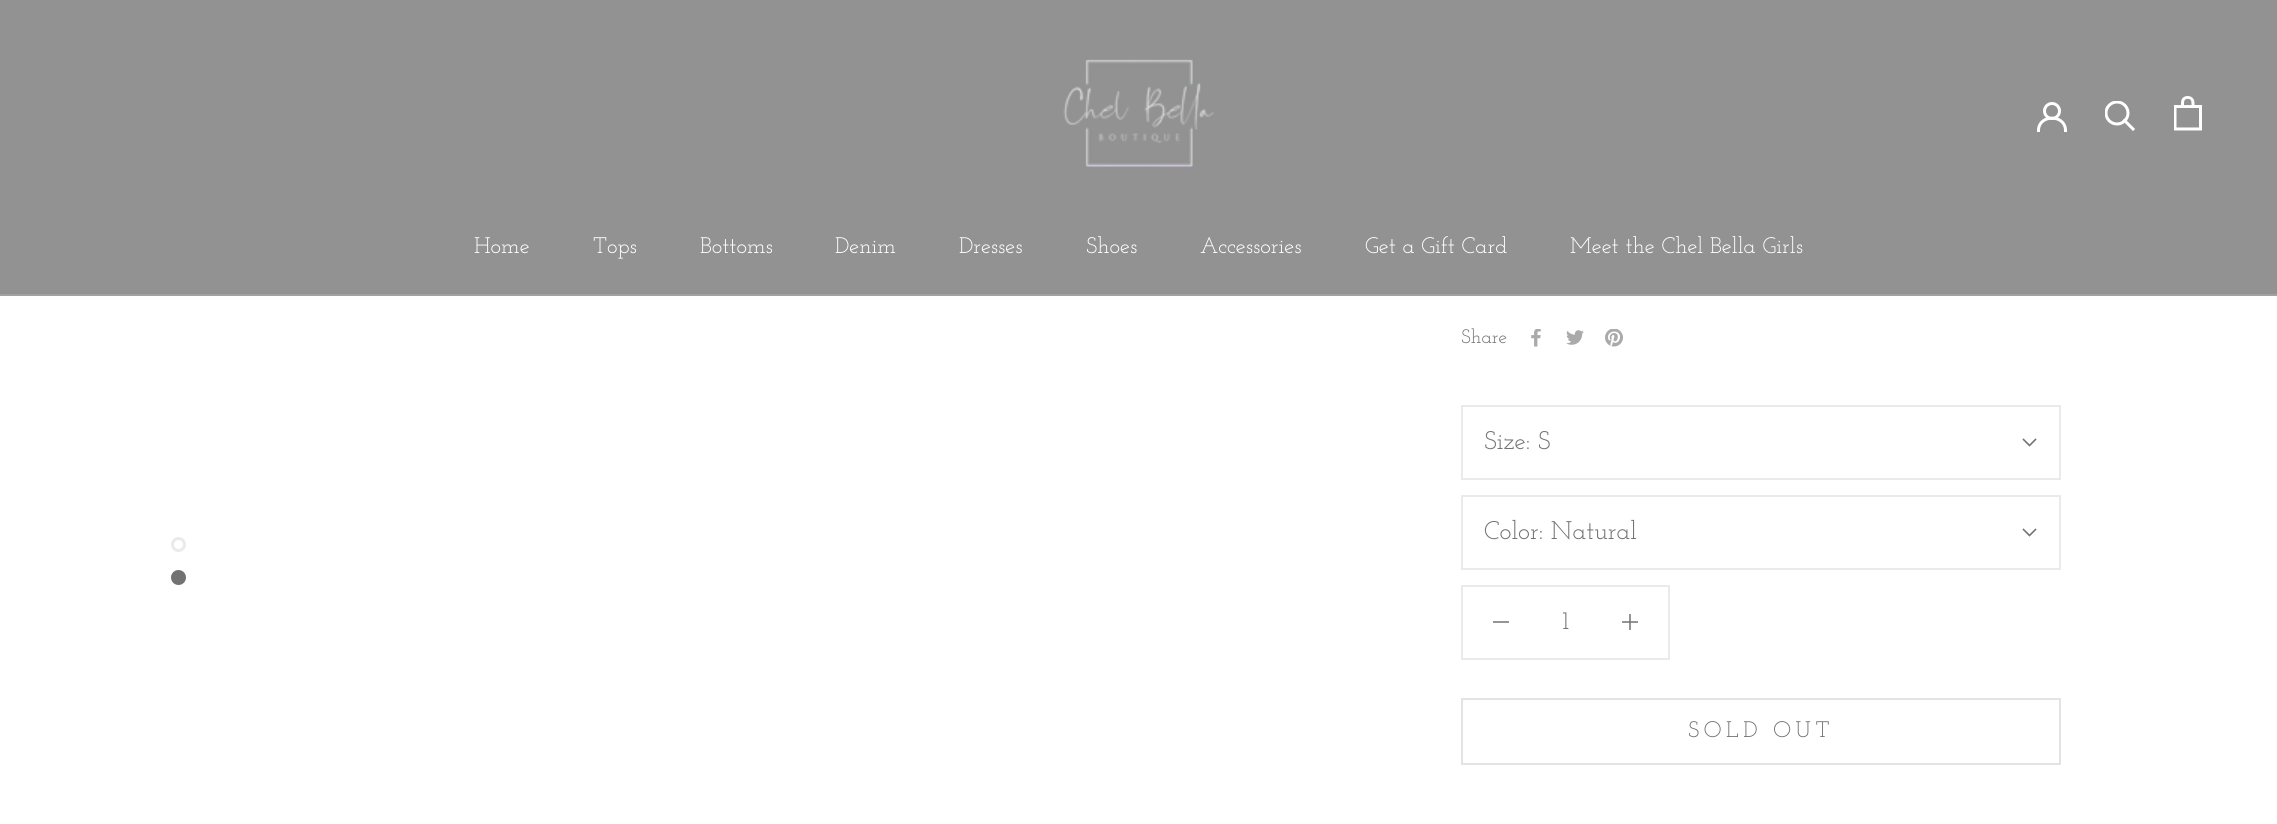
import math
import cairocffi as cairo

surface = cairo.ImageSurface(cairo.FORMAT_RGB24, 2277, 824)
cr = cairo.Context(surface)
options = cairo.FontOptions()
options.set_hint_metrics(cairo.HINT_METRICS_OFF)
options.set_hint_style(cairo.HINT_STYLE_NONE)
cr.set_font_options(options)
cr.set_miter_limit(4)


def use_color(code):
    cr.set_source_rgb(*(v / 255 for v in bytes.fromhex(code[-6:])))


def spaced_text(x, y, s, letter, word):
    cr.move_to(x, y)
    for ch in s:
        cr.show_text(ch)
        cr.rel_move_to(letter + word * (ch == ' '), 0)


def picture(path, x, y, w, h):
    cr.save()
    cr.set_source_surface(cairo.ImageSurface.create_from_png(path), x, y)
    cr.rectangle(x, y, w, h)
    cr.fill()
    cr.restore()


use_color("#ffffff")
cr.paint()
use_color("#959595")
cr.rectangle(1622, 621, 16, 2)
cr.fill()
use_color("#929292")
cr.rectangle(0, 0, 2277, 294)
cr.fill()
use_color("#a2a2a2")
cr.rectangle(0, 294, 2277, 2)
cr.fill()
picture("img1.png", 1063, 59, 151, 108)
cr.new_path()
cr.move_to(2038.5, 130.5)
cr.curve_to(2038.5, 114, 2065.5, 114, 2065.5, 130.5)
use_color("#ffffff")
cr.set_line_width(3)
cr.set_line_cap(cairo.LINE_CAP_SQUARE)
cr.stroke()
cr.arc(2052, 111, 7.5, 0, 2 * math.pi)
cr.set_line_cap(cairo.LINE_CAP_BUTT)
cr.stroke()
cr.new_path()
cr.move_to(2133, 129)
cr.line_to(2124.5, 120.5)
cr.set_line_cap(cairo.LINE_CAP_SQUARE)
cr.stroke()
cr.save()
cr.rectangle(2105, 101, 31, 31)
cr.clip()
cr.arc(2117, 113, 11, 0, 2 * math.pi)
cr.set_line_cap(cairo.LINE_CAP_BUTT)
cr.stroke()
cr.restore()
picture("img2.png", 2174, 96, 28, 35)
cr.select_font_face("Josefin Slab")
cr.set_font_size(22.5)
cr.move_to(474, 253)
cr.show_text("Home")
cr.move_to(593, 253)
cr.show_text("Tops")
cr.move_to(700, 253)
cr.show_text("Bottoms")
cr.move_to(835, 253)
cr.show_text("Denim")
cr.move_to(959, 253)
cr.show_text("Dresses")
cr.move_to(1086, 253)
cr.show_text("Shoes")
cr.move_to(1200, 253)
cr.show_text("Accessories")
cr.move_to(1365, 253)
cr.show_text("Get a Gift Card")
cr.move_to(1570, 253)
cr.show_text("Meet the Chel Bella Girls")
cr.new_path()
cr.arc(178.5, 544.5, 6, 0, 2 * math.pi)
use_color("#eaeaea")
cr.set_line_cap(cairo.LINE_CAP_BUTT)
cr.stroke()
use_color("#727272")
cr.arc(178.5, 577.5, 6, 0, 2 * math.pi)
cr.fill_preserve()
cr.stroke()
cr.set_font_size(19.5)
cr.move_to(1461, 343)
cr.show_text("Share")
picture("img3.png", 1531, 329, 10, 18)
picture("img4.png", 1566, 330, 18, 15)
picture("img5.png", 1605, 329, 18, 18)
cr.rectangle(1462, 406, 598, 73)
use_color("#eaeaea")
cr.set_line_width(2)
cr.stroke()
cr.set_font_size(25.5)
use_color("#727272")
cr.move_to(1484, 449)
cr.show_text("Size: S")
cr.new_path()
cr.move_to(2035.5, 439.5)
cr.line_to(2029.5, 445.5)
cr.line_to(2023.5, 439.5)
cr.set_line_width(1.6)
cr.set_line_cap(cairo.LINE_CAP_SQUARE)
cr.stroke()
cr.rectangle(1462, 496, 598, 73)
use_color("#eaeaea")
cr.set_line_width(2)
cr.set_line_cap(cairo.LINE_CAP_BUTT)
cr.stroke()
use_color("#727272")
cr.move_to(1484, 539)
cr.show_text("Color: Natural")
cr.new_path()
cr.move_to(2035.5, 529.5)
cr.line_to(2029.5, 535.5)
cr.line_to(2023.5, 529.5)
cr.set_line_width(1.6)
cr.set_line_cap(cairo.LINE_CAP_SQUARE)
cr.stroke()
cr.rectangle(1462, 586, 207, 73)
use_color("#eaeaea")
cr.set_line_width(2)
cr.set_line_cap(cairo.LINE_CAP_BUTT)
cr.stroke()
use_color("#959595")
cr.rectangle(1493, 621, 16, 2)
cr.fill()
use_color("#727272")
cr.move_to(1562, 629)
cr.show_text("1")
use_color("#959595")
cr.rectangle(1629, 614, 2, 16)
cr.fill()
use_color("#7b7b7b")
cr.rectangle(1629, 621, 2, 2)
cr.fill()
cr.rectangle(1462, 699, 598, 65)
use_color("#e3e3e3")
cr.stroke()
cr.set_font_size(22.5)
use_color("#727272")
spaced_text(1688, 737, "SOLD OUT", 4.5, 0)
surface.write_to_png("result.png")
